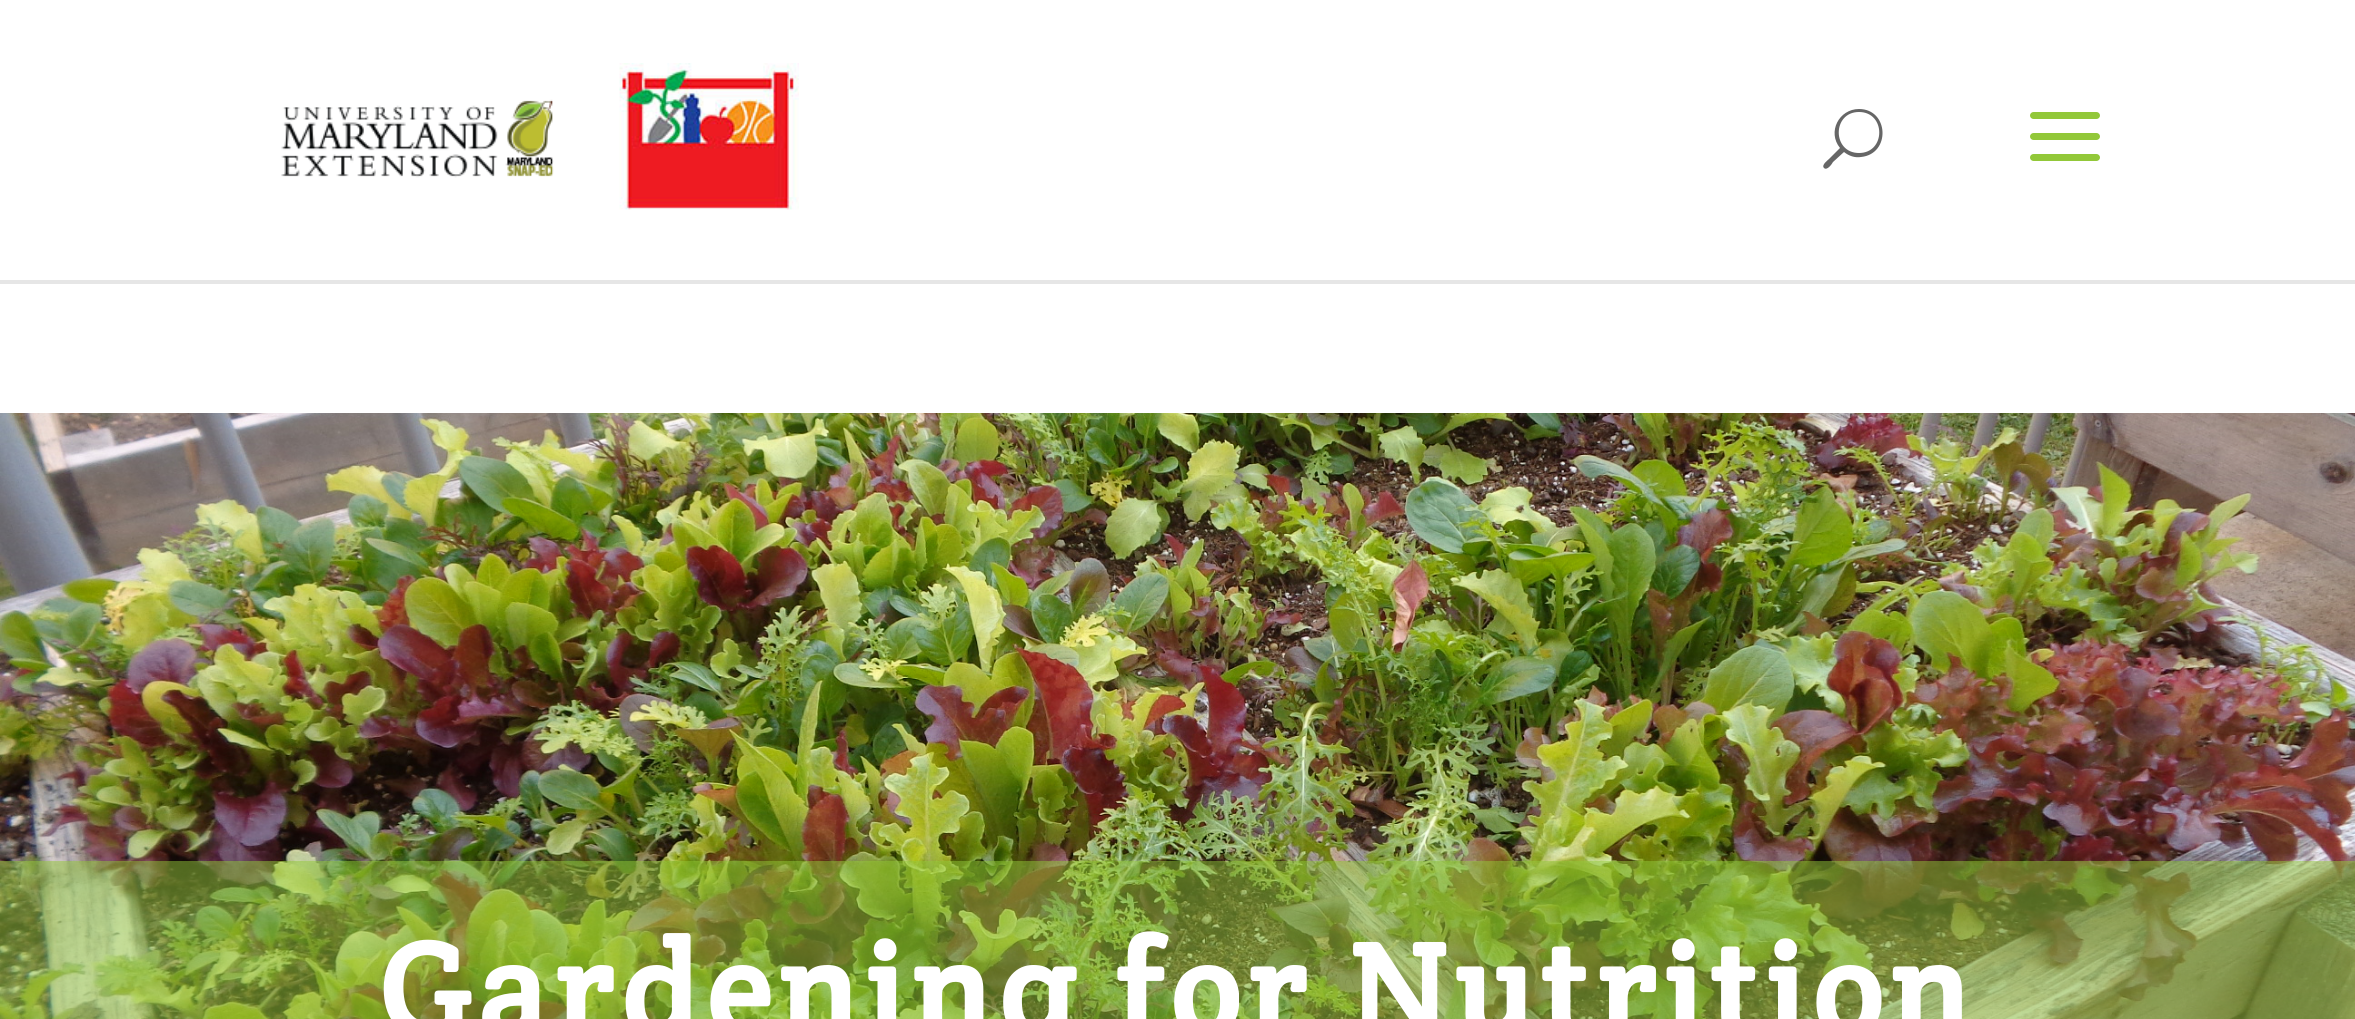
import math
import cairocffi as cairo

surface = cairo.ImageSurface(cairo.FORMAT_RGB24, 2355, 1019)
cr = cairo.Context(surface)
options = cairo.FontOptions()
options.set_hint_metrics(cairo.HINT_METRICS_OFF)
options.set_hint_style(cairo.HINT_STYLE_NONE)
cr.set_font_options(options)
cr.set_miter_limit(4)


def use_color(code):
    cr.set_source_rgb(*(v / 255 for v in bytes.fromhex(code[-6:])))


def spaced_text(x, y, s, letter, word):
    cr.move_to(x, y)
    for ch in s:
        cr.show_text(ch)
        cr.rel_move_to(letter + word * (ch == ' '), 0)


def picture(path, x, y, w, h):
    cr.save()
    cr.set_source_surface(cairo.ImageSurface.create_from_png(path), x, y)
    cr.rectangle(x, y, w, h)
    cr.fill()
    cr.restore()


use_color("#ffffff")
cr.paint()
use_color("#e6e6e6")
cr.new_path()
cr.move_to(0, 280)
cr.line_to(0, 284)
cr.line_to(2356, 284)
cr.line_to(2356, 4)
cr.line_to(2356, 280)
cr.close_path()
cr.fill()
picture("img1.png", 281, 63, 518, 147)
use_color("#666666")
cr.new_path()
cr.move_to(1859, 109)
cr.curve_to(1839, 109, 1827, 132, 1840, 148)
cr.line_to(1829, 159)
cr.curve_to(1828, 160, 1821, 165, 1824, 168)
cr.curve_to(1827, 171, 1832, 164, 1833, 162)
cr.line_to(1844, 152)
cr.curve_to(1849, 156, 1855, 158, 1861, 157)
cr.curve_to(1891, 154, 1889, 109, 1859, 109)
cr.close_path()
cr.move_to(1859, 153)
cr.curve_to(1832, 153, 1832, 112, 1859, 112)
cr.curve_to(1886, 112, 1886, 153, 1859, 153)
cr.close_path()
cr.fill()
picture("img2.png", 2030, 112, 70, 49)
picture("img3.png", 0, 413, 2355, 606)
cr.set_source_rgba(0.573, 0.784, 0.224, 0.5)
cr.rectangle(0, 861, 2355, 158)
cr.fill()
cr.select_font_face("Crete Round", cairo.FONT_SLANT_NORMAL, cairo.FONT_WEIGHT_BOLD)
cr.set_font_size(133)
use_color("#ffffff")
spaced_text(378, 1036, "Gardening for Nutrition", 7, 0)
surface.write_to_png("result.png")
